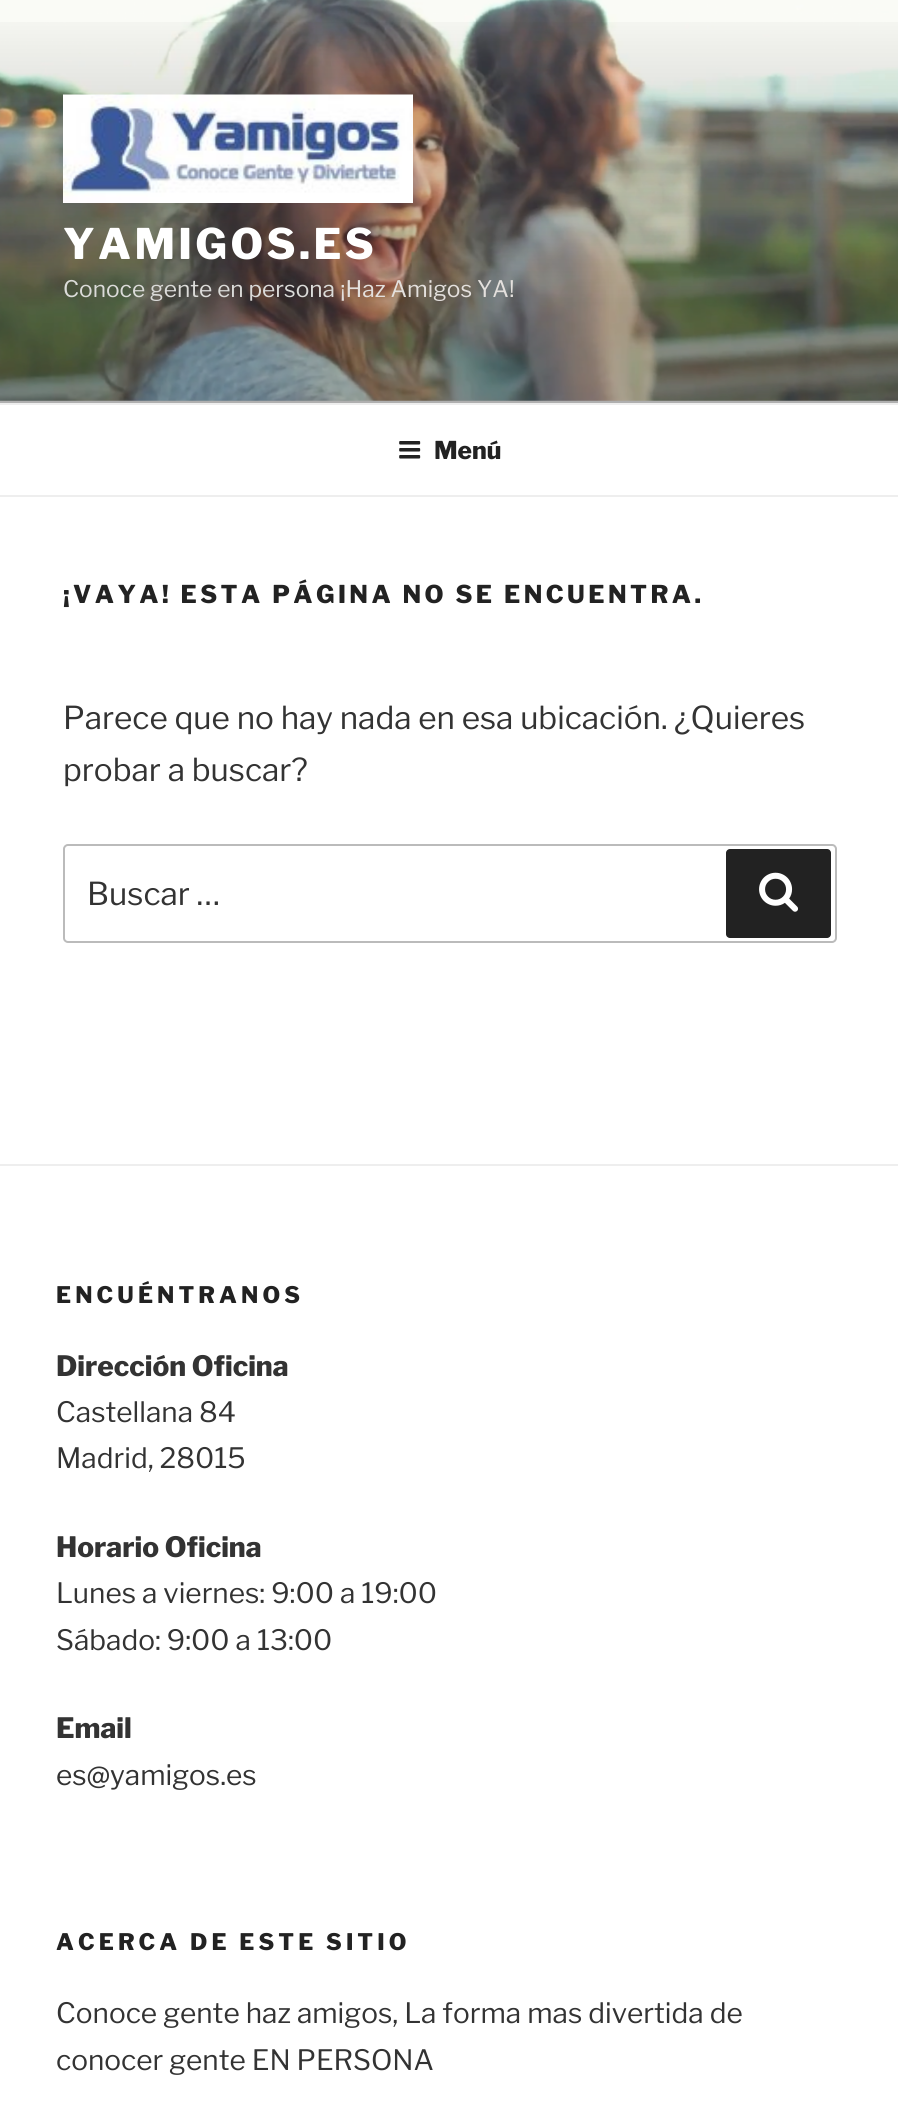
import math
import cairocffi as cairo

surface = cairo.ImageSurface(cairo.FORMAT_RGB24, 898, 2120)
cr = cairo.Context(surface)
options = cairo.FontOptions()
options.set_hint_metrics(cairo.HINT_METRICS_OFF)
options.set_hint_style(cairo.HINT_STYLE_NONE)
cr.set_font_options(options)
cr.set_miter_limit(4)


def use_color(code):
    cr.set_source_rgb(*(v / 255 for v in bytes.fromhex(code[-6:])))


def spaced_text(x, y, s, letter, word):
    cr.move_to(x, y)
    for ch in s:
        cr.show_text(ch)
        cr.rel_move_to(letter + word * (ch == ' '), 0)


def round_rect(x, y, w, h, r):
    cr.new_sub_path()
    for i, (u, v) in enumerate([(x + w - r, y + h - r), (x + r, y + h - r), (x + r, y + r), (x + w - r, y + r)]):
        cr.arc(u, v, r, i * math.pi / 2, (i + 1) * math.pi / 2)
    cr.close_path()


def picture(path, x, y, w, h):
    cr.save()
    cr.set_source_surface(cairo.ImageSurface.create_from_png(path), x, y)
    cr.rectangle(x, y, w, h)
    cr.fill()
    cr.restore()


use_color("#ffffff")
cr.paint()
use_color("#fafafa")
cr.rectangle(0, 400, 898, 3)
cr.fill()
picture("img1.png", 0, 0, 898, 401)
gradient = cairo.LinearGradient(450, 0, 450, 403)
gradient.add_color_stop_rgba(0, 0, 0, 0, 0)
gradient.add_color_stop_rgba(0.75, 0, 0, 0, 0.3)
gradient.add_color_stop_rgba(1, 0, 0, 0, 0.3)
cr.set_source(gradient)
cr.rectangle(0, 22, 898, 381)
cr.fill()
picture("img2.png", 63, 94, 350, 109)
cr.select_font_face("Libre Franklin ExtraBold")
cr.set_font_size(42)
use_color("#ffffff")
spaced_text(63, 259, "YAMIGOS.ES", 3.4, 0)
cr.select_font_face("Libre Franklin")
cr.set_font_size(22.75)
use_color("#dbdbd9")
cr.move_to(63, 297)
cr.show_text("Conoce gente en persona")
use_color("#e4e0dd")
cr.move_to(340, 297)
cr.show_text("¡Haz Amigos YA!")
use_color("#eeeeee")
cr.rectangle(0, 403, 898, 2)
cr.fill()
cr.rectangle(0, 495, 898, 2)
cr.fill()
picture("img3.png", 399, 441, 22, 18)
cr.select_font_face("Libre Franklin ExtraBold")
cr.set_font_size(24.5)
use_color("#222222")
cr.move_to(434, 459)
cr.show_text("Menú")
spaced_text(63, 603, "¡VAYA! ESTA PÁGINA NO SE ENCUENTRA.", 3.45, 0)
cr.select_font_face("Libre Franklin")
cr.set_font_size(31.5)
use_color("#333333")
cr.move_to(63, 729)
cr.show_text("Parece que no hay nada en esa ubicación. ¿Quieres")
cr.move_to(63, 781)
cr.show_text("probar a buscar?")
round_rect(64, 845, 772, 97, 4)
use_color("#bbbbbb")
cr.stroke()
use_color("#333333")
cr.move_to(87, 905)
cr.show_text("Buscar …")
use_color("#222222")
round_rect(726, 849, 105, 89, 4)
cr.fill()
picture("img4.png", 759, 872, 39, 40)
use_color("#eeeeee")
cr.rectangle(0, 1164, 898, 2)
cr.fill()
cr.select_font_face("Libre Franklin ExtraBold")
cr.set_font_size(22.75)
use_color("#222222")
spaced_text(56, 1303, "ENCUÉNTRANOS", 4.1, 0)
cr.set_font_size(28)
use_color("#333333")
cr.move_to(56, 1376)
cr.show_text("Dirección Oficina")
cr.select_font_face("Libre Franklin")
cr.move_to(56, 1422)
cr.show_text("Castellana 84")
cr.move_to(56, 1468)
cr.show_text("Madrid, 28015")
cr.select_font_face("Libre Franklin ExtraBold")
cr.move_to(56, 1557)
cr.show_text("Horario Oficina")
cr.select_font_face("Libre Franklin")
cr.move_to(56, 1603)
cr.show_text("Lunes a viernes: 9:00 a 19:00")
cr.move_to(56, 1650)
cr.show_text("Sábado: 9:00 a 13:00")
cr.select_font_face("Libre Franklin ExtraBold")
cr.move_to(56, 1738)
cr.show_text("Email")
cr.select_font_face("Libre Franklin")
cr.move_to(56, 1785)
cr.show_text("es@yamigos.es")
cr.select_font_face("Libre Franklin ExtraBold")
cr.set_font_size(22.75)
use_color("#222222")
spaced_text(56, 1950, "ACERCA DE ESTE SITIO", 4.1, 0)
cr.select_font_face("Libre Franklin")
cr.set_font_size(28)
use_color("#333333")
cr.move_to(56, 2023)
cr.show_text("Conoce gente haz amigos, La forma mas divertida de")
cr.move_to(56, 2070)
cr.show_text("conocer gente EN PERSONA")
surface.write_to_png("result.png")
